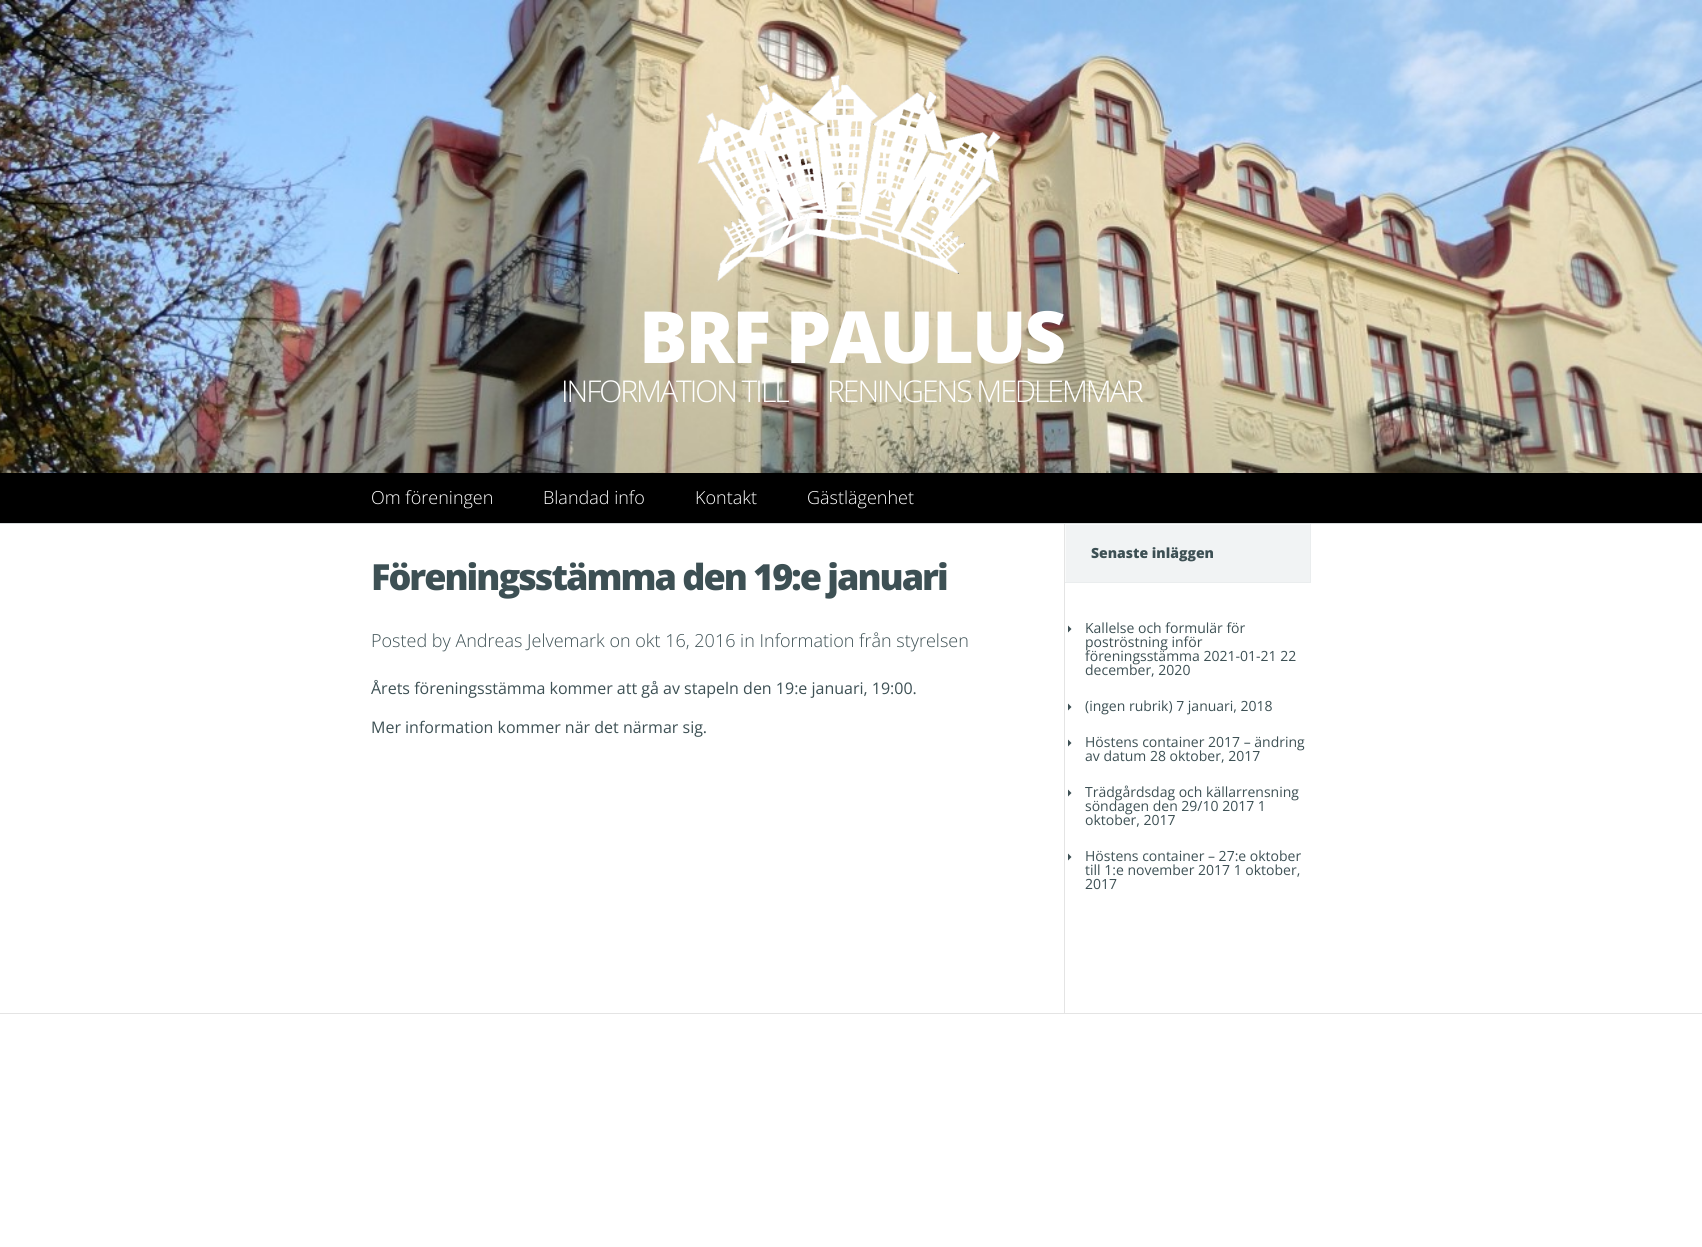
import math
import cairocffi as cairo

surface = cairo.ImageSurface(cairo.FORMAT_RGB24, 1702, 1247)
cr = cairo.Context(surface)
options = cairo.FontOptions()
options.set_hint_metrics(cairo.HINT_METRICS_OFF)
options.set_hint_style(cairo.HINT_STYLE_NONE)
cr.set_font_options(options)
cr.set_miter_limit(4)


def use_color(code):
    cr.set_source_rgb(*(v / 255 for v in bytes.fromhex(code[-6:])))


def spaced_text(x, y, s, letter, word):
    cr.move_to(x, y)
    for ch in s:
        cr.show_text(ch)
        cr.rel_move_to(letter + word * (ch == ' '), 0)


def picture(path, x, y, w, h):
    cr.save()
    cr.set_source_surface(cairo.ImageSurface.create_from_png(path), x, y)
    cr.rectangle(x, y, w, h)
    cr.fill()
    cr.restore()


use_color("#ffffff")
cr.paint()
picture("img1.png", 0, 0, 1702, 473)
picture("img2.png", 697, 75, 304, 207)
cr.select_font_face("Open Sans ExtraBold")
cr.set_font_size(72)
use_color("#ffffff")
spaced_text(639, 363, "BRF PAULUS", -2, 0)
cr.select_font_face("Open Sans Light")
cr.set_font_size(30)
spaced_text(561, 402, "INFORMATION TILL", -2, 0)
spaced_text(827, 402, "RENINGENS MEDLEMMAR", -2, 0)
use_color("#000000")
cr.rectangle(0, 473, 1702, 50)
cr.fill()
use_color("#d7dbdc")
cr.rectangle(0, 523, 1702, 1)
cr.fill()
cr.set_font_size(18)
use_color("#ffffff")
cr.move_to(371, 504)
cr.show_text("Om föreningen")
cr.move_to(543, 504)
cr.show_text("Blandad info")
cr.move_to(695, 504)
cr.show_text("Kontakt")
cr.move_to(807, 504)
cr.show_text("Gästlägenhet")
use_color("#e4e4e4")
cr.rectangle(0, 1013, 1702, 1)
cr.fill()
cr.select_font_face("Open Sans ExtraBold")
cr.set_font_size(36)
use_color("#3d5054")
spaced_text(371, 590, "Föreningsstämma den 19:e januari", -2, 0)
cr.select_font_face("Open Sans Light")
cr.set_font_size(18)
cr.move_to(371, 647)
cr.show_text("Posted by Andreas Jelvemark on okt 16, 2016 in Information från styrelsen")
cr.select_font_face("Open Sans")
cr.set_font_size(16)
cr.move_to(371, 694)
cr.show_text("Årets föreningsstämma kommer att gå av stapeln den 19:e januari, 19:00.")
cr.move_to(371, 733)
cr.show_text("Mer information kommer när det närmar sig.")
use_color("#eaedee")
cr.rectangle(1310, 524, 1, 59)
cr.fill()
cr.rectangle(1064, 582, 247, 1)
cr.fill()
use_color("#e4e4e4")
cr.rectangle(1064, 524, 1, 489)
cr.fill()
use_color("#f1f3f4")
cr.rectangle(1066, 525, 244, 57)
cr.fill()
cr.save()
cr.rectangle(1065, 524, 245, 58)
cr.clip()
use_color("#f9fafa")
cr.set_fill_rule(cairo.FILL_RULE_EVEN_ODD)
cr.new_path()
cr.move_to(966, 425)
cr.line_to(1409, 425)
cr.line_to(1409, 681)
cr.line_to(966, 681)
cr.close_path()
cr.move_to(1066, 525)
cr.line_to(1311, 525)
cr.line_to(1311, 583)
cr.line_to(1066, 583)
cr.close_path()
cr.fill()
cr.restore()
cr.select_font_face("Open Sans ExtraBold")
cr.set_font_size(14)
use_color("#3d5054")
cr.move_to(1091, 558)
cr.show_text("Senaste inläggen")
picture("img3.png", 1068, 625, 4, 8)
cr.select_font_face("Open Sans")
cr.move_to(1085, 633)
cr.show_text("Kallelse och formulär för")
cr.move_to(1085, 647)
cr.show_text("poströstning inför")
cr.move_to(1085, 661)
cr.show_text("föreningsstämma 2021-01-21 22")
cr.move_to(1085, 675)
cr.show_text("december, 2020")
picture("img3.png", 1068, 703, 4, 8)
cr.move_to(1085, 711)
cr.show_text("(ingen rubrik) 7 januari, 2018")
picture("img3.png", 1068, 739, 4, 8)
cr.move_to(1085, 747)
cr.show_text("Höstens container 2017 – ändring")
cr.move_to(1085, 761)
cr.show_text("av datum 28 oktober, 2017")
picture("img3.png", 1068, 789, 4, 8)
cr.move_to(1085, 797)
cr.show_text("Trädgårdsdag och källarrensning")
cr.move_to(1085, 811)
cr.show_text("söndagen den 29/10 2017 1")
cr.move_to(1085, 825)
cr.show_text("oktober, 2017")
picture("img3.png", 1068, 853, 4, 8)
cr.move_to(1085, 861)
cr.show_text("Höstens container – 27:e oktober")
cr.move_to(1085, 875)
cr.show_text("till 1:e november 2017 1 oktober,")
cr.move_to(1085, 889)
cr.show_text("2017")
surface.write_to_png("result.png")
